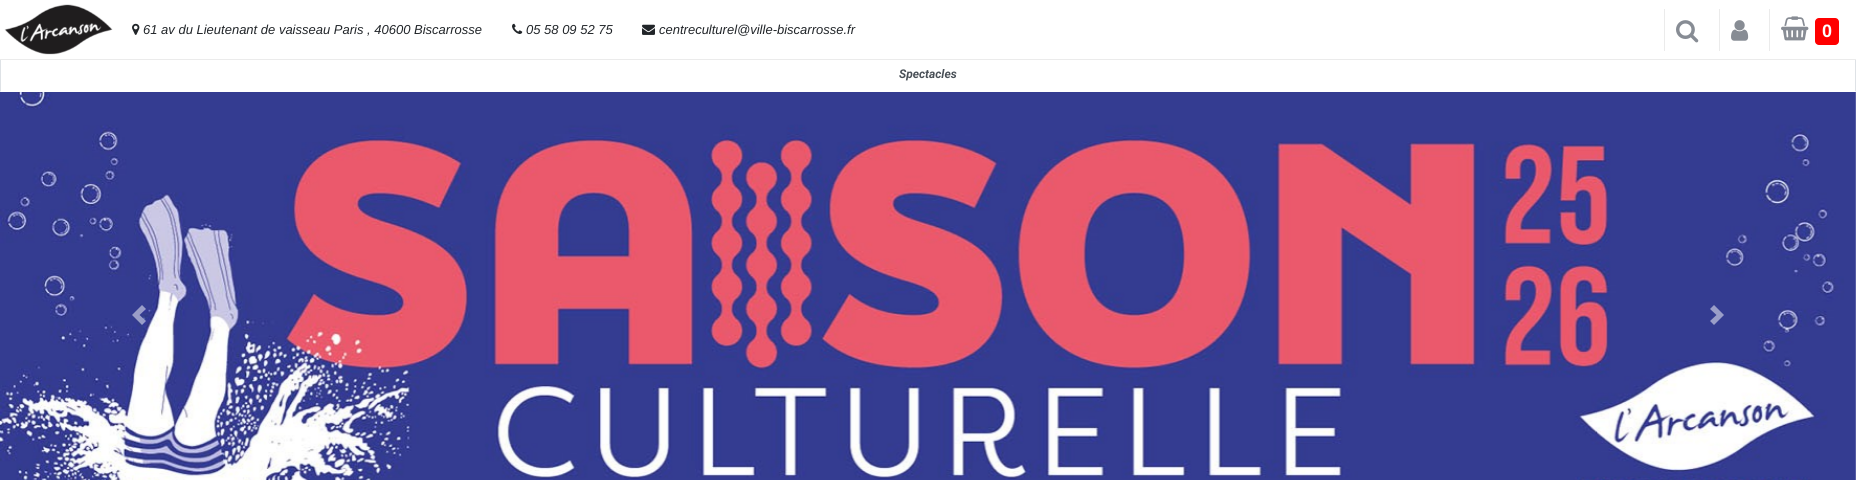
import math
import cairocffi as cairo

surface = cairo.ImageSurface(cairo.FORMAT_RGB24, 1856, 480)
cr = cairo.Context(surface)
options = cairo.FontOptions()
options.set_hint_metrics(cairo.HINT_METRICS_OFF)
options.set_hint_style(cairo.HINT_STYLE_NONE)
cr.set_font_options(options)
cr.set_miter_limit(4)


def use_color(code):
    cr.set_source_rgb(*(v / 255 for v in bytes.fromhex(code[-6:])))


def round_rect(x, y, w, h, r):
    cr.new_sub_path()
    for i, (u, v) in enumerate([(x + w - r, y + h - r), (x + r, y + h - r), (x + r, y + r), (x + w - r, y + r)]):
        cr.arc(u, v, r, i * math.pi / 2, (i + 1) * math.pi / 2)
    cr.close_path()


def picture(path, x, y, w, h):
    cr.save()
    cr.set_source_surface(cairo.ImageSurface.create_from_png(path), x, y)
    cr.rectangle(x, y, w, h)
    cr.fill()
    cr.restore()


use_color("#ffffff")
cr.paint()
use_color("#dee2e6")
cr.new_path()
cr.move_to(1856, 92)
cr.line_to(1856, 60)
cr.curve_to(1856, 59, 1855.5, 58, 1855, 57)
cr.line_to(1854, 58)
cr.curve_to(1855, 58, 1855, 59, 1855, 60)
cr.line_to(1855, 91)
cr.close_path()
cr.fill()
use_color("#ffffff")
cr.new_path()
cr.move_to(1856, 92)
cr.line_to(1855, 91)
cr.line_to(1, 91)
cr.line_to(0, 92)
cr.close_path()
cr.fill()
use_color("#dee2e6")
cr.new_path()
cr.move_to(0, 92)
cr.line_to(1, 91)
cr.line_to(1, 60)
cr.curve_to(1, 59, 1, 58, 2, 58)
cr.line_to(1, 57)
cr.curve_to(0.5, 58, 0, 59, 0, 60)
cr.close_path()
cr.fill()
use_color("#ffffff")
cr.rectangle(0, 57, 1856, 2)
cr.fill()
use_color("#ebebeb")
cr.rectangle(0, 59, 1856, 1)
cr.fill()
picture("img1.png", 4, 4, 109, 51)
picture("img2.png", 132, 23, 8, 12)
cr.select_font_face("Liberation Sans", cairo.FONT_SLANT_ITALIC)
cr.set_font_size(13)
use_color("#212529")
cr.move_to(143, 34)
cr.show_text("61 av du Lieutenant de vaisseau Paris , 40600 Biscarrosse")
picture("img3.png", 512, 23, 11, 11)
cr.move_to(526, 34)
cr.show_text("05 58 09 52 75")
picture("img4.png", 642, 24, 13, 11)
cr.move_to(659, 34)
cr.show_text("centreculturel@ville-biscarrosse.fr")
use_color("#ebebeb")
cr.rectangle(1664, 9, 1, 42)
cr.fill()
cr.rectangle(1719, 9, 1, 42)
cr.fill()
picture("img5.png", 1676, 20, 23, 23)
cr.rectangle(1769, 9, 1, 42)
cr.fill()
picture("img6.png", 1731, 20, 18, 21)
picture("img7.png", 1781, 16, 28, 25)
use_color("#ff0000")
round_rect(1815, 18, 24, 27, 4)
cr.fill()
cr.select_font_face("Liberation Sans", cairo.FONT_SLANT_NORMAL, cairo.FONT_WEIGHT_BOLD)
cr.set_font_size(18)
use_color("#ffffff")
cr.move_to(1822, 37)
cr.show_text("0")
cr.select_font_face("Roboto", cairo.FONT_SLANT_ITALIC, cairo.FONT_WEIGHT_BOLD)
cr.set_font_size(12)
use_color("#495057")
cr.move_to(899, 78)
cr.show_text("Spectacles")
picture("img8.png", 0, 92, 1856, 388)
cr.set_source_rgba(1, 1, 1, 0.5)
cr.new_path()
cr.move_to(142, 305)
cr.line_to(132, 315)
cr.line_to(142, 325)
cr.line_to(146, 321)
cr.line_to(139.5, 315)
cr.line_to(146, 309)
cr.close_path()
cr.fill()
use_color("#9a9ec8")
cr.new_path()
cr.move_to(1714, 305)
cr.line_to(1710, 309)
cr.line_to(1716.5, 315)
cr.line_to(1710, 321)
cr.line_to(1714, 325)
cr.line_to(1724, 315)
cr.close_path()
cr.fill()
surface.write_to_png("result.png")
